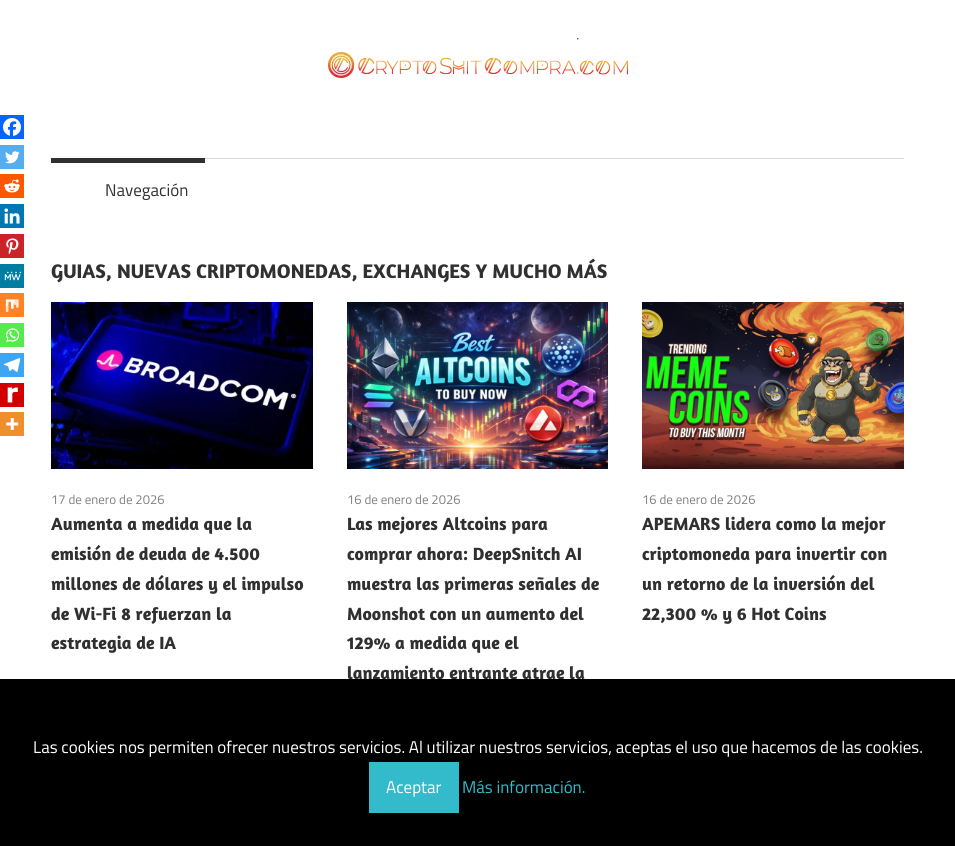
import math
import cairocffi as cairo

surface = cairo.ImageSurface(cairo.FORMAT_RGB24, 955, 846)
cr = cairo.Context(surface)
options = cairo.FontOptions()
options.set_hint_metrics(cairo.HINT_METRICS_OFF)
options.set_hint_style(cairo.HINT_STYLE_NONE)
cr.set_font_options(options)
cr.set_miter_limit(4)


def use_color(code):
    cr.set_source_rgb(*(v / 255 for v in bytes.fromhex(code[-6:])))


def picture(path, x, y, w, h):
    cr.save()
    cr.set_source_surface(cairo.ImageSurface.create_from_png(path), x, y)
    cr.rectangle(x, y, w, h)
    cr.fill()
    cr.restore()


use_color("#ffffff")
cr.paint()
picture("img1.png", 328, 38, 300, 40)
use_color("#d9d9d9")
cr.rectangle(205, 158, 699, 1)
cr.fill()
use_color("#303030")
cr.rectangle(51, 158, 154, 5)
cr.fill()
cr.select_font_face("Titillium Web")
cr.set_font_size(17)
cr.move_to(105, 196)
cr.show_text("Navegación")
use_color("#0765fe")
cr.rectangle(0, 115, 24, 24)
cr.fill()
picture("img2.png", 3, 118, 18, 18)
use_color("#55acee")
cr.rectangle(0, 145, 24, 24)
cr.fill()
picture("img3.png", 5, 151, 15, 13)
use_color("#ff5700")
cr.rectangle(0, 174, 24, 24)
cr.fill()
picture("img4.png", 4, 179, 16, 14)
use_color("#0077b5")
cr.rectangle(0, 204, 24, 24)
cr.fill()
picture("img5.png", 4, 208, 16, 16)
use_color("#cc2329")
cr.rectangle(0, 234, 24, 24)
cr.fill()
picture("img6.png", 6, 238, 13, 17)
use_color("#007da1")
cr.rectangle(0, 264, 24, 24)
cr.fill()
picture("img7.png", 4, 271, 18, 10)
use_color("#ff8226")
cr.rectangle(0, 293, 24, 24)
cr.fill()
picture("img8.png", 5, 299, 14, 14)
use_color("#55eb4c")
cr.rectangle(0, 323, 24, 24)
cr.fill()
picture("img9.png", 6, 328, 14, 14)
use_color("#3da5f1")
cr.rectangle(0, 353, 24, 24)
cr.fill()
picture("img10.png", 3, 358, 18, 14)
use_color("#d20000")
cr.rectangle(0, 383, 24, 24)
cr.fill()
picture("img11.png", 7, 387, 11, 16)
use_color("#ee8e2d")
cr.rectangle(0, 412, 24, 24)
cr.fill()
picture("img12.png", 6, 418, 13, 12)
cr.select_font_face("Amaranth", cairo.FONT_SLANT_NORMAL, cairo.FONT_WEIGHT_BOLD)
cr.set_font_size(20)
use_color("#303030")
cr.move_to(51, 278)
cr.show_text("GUIAS, NUEVAS CRIPTOMONEDAS, EXCHANGES Y MUCHO MÁS")
picture("img13.png", 51, 302, 262, 167)
cr.select_font_face("Titillium Web")
cr.set_font_size(13)
use_color("#808080")
cr.move_to(51, 504)
cr.show_text("17 de enero de 2026")
cr.select_font_face("Amaranth", cairo.FONT_SLANT_NORMAL, cairo.FONT_WEIGHT_BOLD)
cr.set_font_size(18)
use_color("#303030")
cr.move_to(51, 530)
cr.show_text("Aumenta a medida que la")
cr.move_to(51, 560)
cr.show_text("emisión de deuda de 4.500")
cr.move_to(51, 590)
cr.show_text("millones de dólares y el impulso")
cr.move_to(51, 620)
cr.show_text("de Wi-Fi 8 refuerzan la")
cr.move_to(51, 649)
cr.show_text("estrategia de IA")
picture("img14.png", 347, 302, 261, 167)
cr.select_font_face("Titillium Web")
cr.set_font_size(13)
use_color("#808080")
cr.move_to(347, 504)
cr.show_text("16 de enero de 2026")
cr.select_font_face("Amaranth", cairo.FONT_SLANT_NORMAL, cairo.FONT_WEIGHT_BOLD)
cr.set_font_size(18)
use_color("#303030")
cr.move_to(347, 530)
cr.show_text("Las mejores Altcoins para")
cr.move_to(347, 560)
cr.show_text("comprar ahora: DeepSnitch AI")
cr.move_to(347, 590)
cr.show_text("muestra las primeras señales de")
cr.move_to(347, 620)
cr.show_text("Moonshot con un aumento del")
cr.move_to(347, 649)
cr.show_text("129% a medida que el")
cr.move_to(347, 679)
cr.show_text("lanzamiento entrante atrae la")
picture("img15.png", 642, 302, 262, 167)
cr.select_font_face("Titillium Web")
cr.set_font_size(13)
use_color("#808080")
cr.move_to(642, 504)
cr.show_text("16 de enero de 2026")
cr.select_font_face("Amaranth", cairo.FONT_SLANT_NORMAL, cairo.FONT_WEIGHT_BOLD)
cr.set_font_size(18)
use_color("#303030")
cr.move_to(642, 530)
cr.show_text("APEMARS lidera como la mejor")
cr.move_to(642, 560)
cr.show_text("criptomoneda para invertir con")
cr.move_to(642, 590)
cr.show_text("un retorno de la inversión del")
cr.move_to(642, 620)
cr.show_text("22,300 % y 6 Hot Coins")
use_color("#000000")
cr.rectangle(0, 679, 955, 167)
cr.fill()
cr.select_font_face("Titillium Web")
cr.set_font_size(17)
use_color("#ffffff")
cr.move_to(33, 753)
cr.show_text("Las cookies nos permiten ofrecer nuestros servicios. Al utilizar nuestros servicios, aceptas el uso que hacemos de las cookies.")
use_color("#33bbcc")
cr.rectangle(369, 762, 90, 51)
cr.fill()
use_color("#ffffff")
cr.move_to(386, 793)
cr.show_text("Aceptar")
use_color("#33bbcc")
cr.move_to(462, 793)
cr.show_text("Más información.")
surface.write_to_png("result.png")
